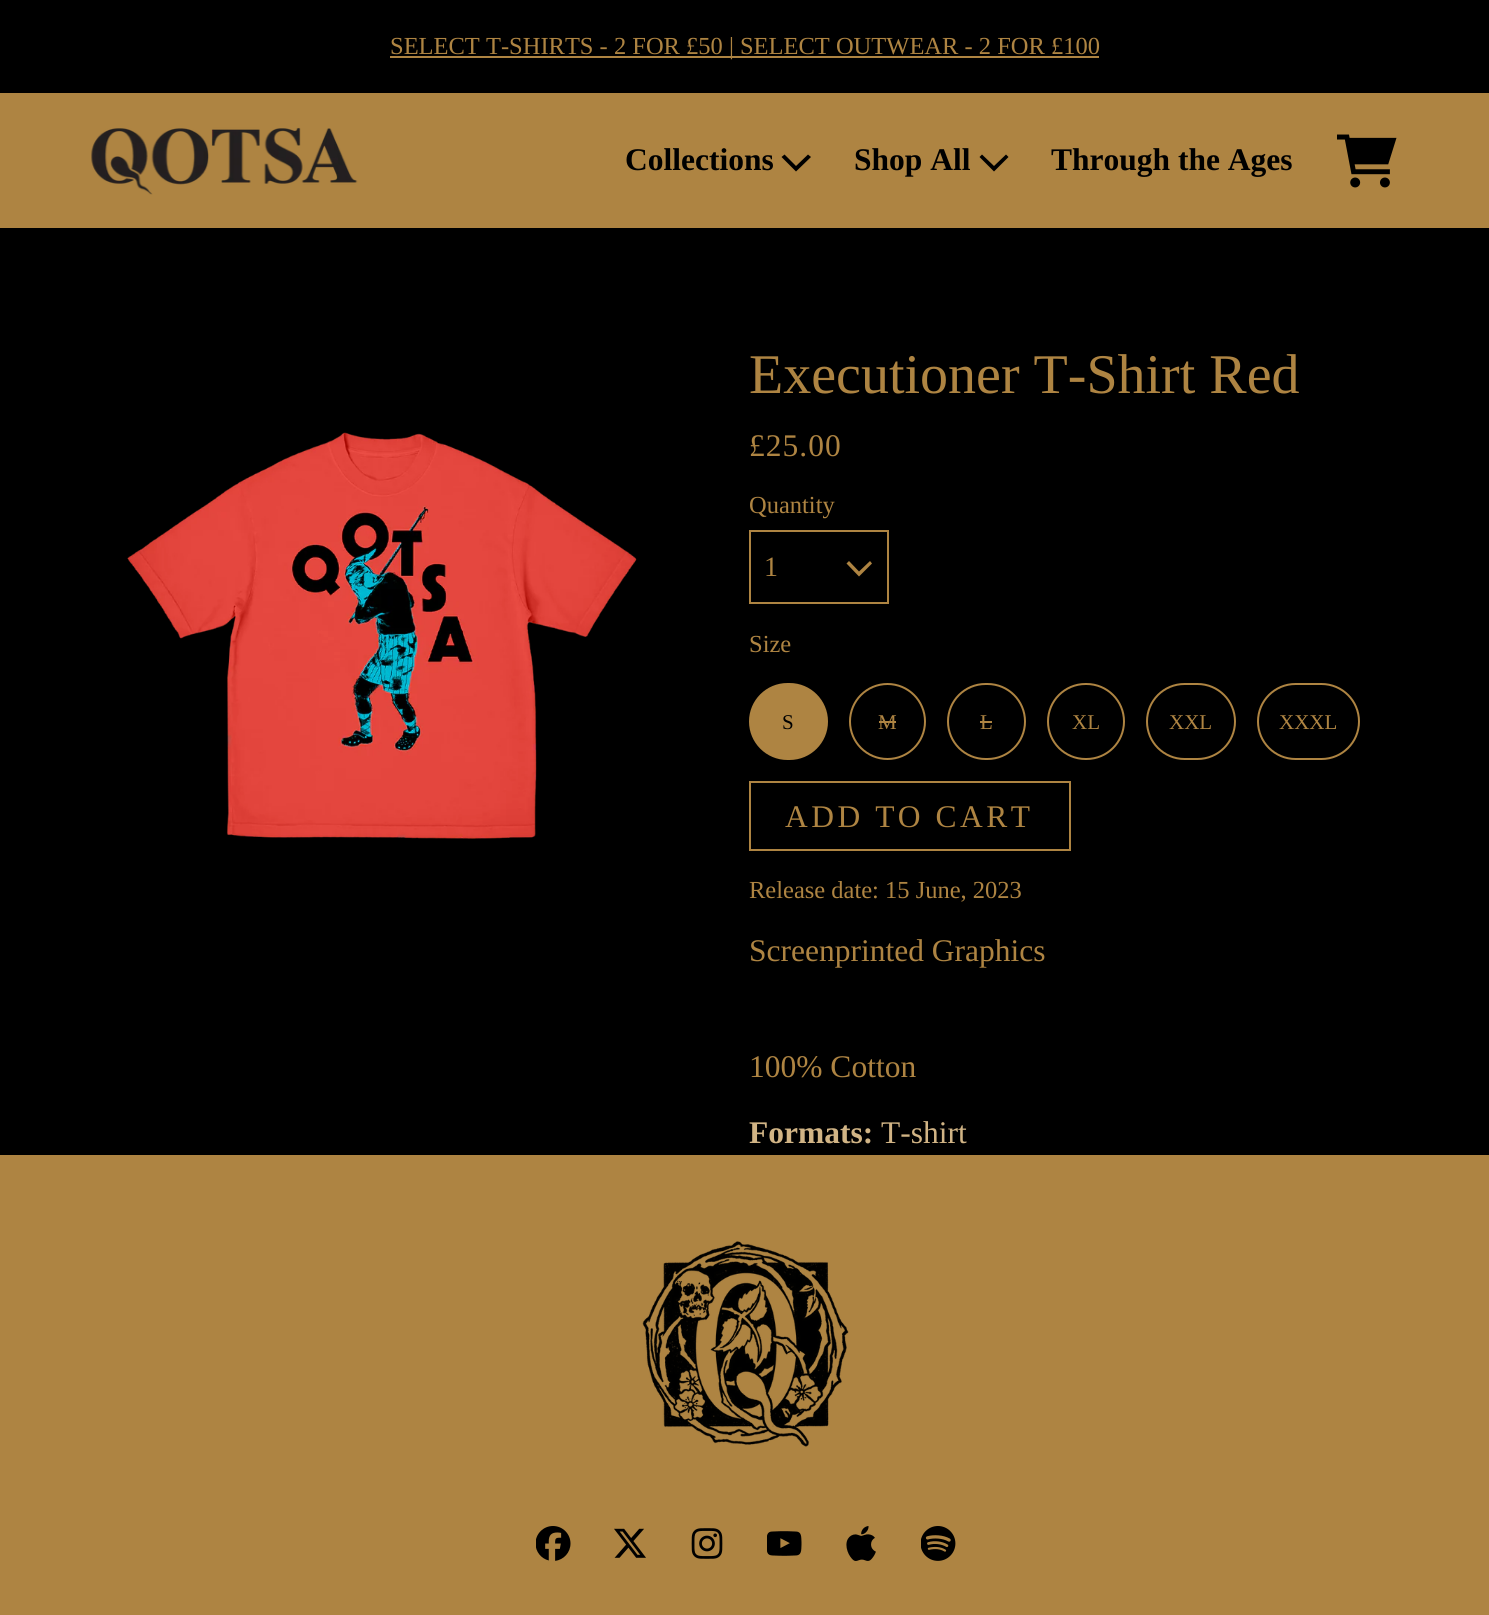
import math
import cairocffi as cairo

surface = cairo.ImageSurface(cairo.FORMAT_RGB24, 1489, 1615)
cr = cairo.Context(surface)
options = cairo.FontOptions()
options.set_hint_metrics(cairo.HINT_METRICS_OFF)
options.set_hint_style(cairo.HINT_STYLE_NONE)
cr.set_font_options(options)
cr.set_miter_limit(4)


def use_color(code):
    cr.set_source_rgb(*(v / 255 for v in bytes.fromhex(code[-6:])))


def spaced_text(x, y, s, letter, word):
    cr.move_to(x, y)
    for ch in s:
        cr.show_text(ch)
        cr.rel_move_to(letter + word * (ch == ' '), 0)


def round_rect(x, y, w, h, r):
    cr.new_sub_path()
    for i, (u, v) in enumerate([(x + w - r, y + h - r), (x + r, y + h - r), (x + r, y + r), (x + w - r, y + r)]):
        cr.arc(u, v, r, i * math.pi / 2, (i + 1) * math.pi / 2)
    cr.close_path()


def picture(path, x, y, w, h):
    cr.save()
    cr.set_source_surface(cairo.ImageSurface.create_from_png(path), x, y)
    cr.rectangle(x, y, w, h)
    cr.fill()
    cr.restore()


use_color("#000000")
cr.paint()
use_color("#ae8442")
cr.rectangle(390, 56, 709, 2)
cr.fill()
cr.select_font_face("Liberation Serif")
cr.set_font_size(24.5)
cr.move_to(390, 54)
cr.show_text("SELECT T-SHIRTS - 2 FOR £50 | SELECT OUTWEAR - 2 FOR £100")
cr.rectangle(0, 93, 1489, 135)
cr.fill()
picture("img1.png", 91, 127, 267, 68)
cr.select_font_face("Liberation Serif", cairo.FONT_SLANT_NORMAL, cairo.FONT_WEIGHT_BOLD)
cr.set_font_size(31.5)
use_color("#000000")
cr.move_to(625, 170)
cr.show_text("Collections")
cr.new_path()
cr.move_to(796, 171.5)
cr.line_to(811, 157)
cr.line_to(808, 154.5)
cr.line_to(796, 166)
cr.line_to(784.5, 154.5)
cr.line_to(781.5, 157)
cr.close_path()
cr.fill()
cr.move_to(854, 170)
cr.show_text("Shop All")
cr.new_path()
cr.move_to(994, 171.5)
cr.line_to(1008.5, 157)
cr.line_to(1006, 154.5)
cr.line_to(994, 166)
cr.line_to(982, 154.5)
cr.line_to(979.5, 157)
cr.close_path()
cr.fill()
cr.move_to(1051, 170)
cr.show_text("Through the Ages")
picture("img2.png", 1337, 134, 60, 54)
picture("img3.png", 127, 432, 510, 407)
cr.select_font_face("Liberation Serif")
cr.set_font_size(56)
use_color("#ae8442")
cr.move_to(749, 393)
cr.show_text("Executioner T-Shirt Red")
cr.set_font_size(31.5)
spaced_text(749, 456, "£25.00", 1, 0)
cr.set_font_size(24.5)
cr.move_to(749, 513)
cr.show_text("Quantity")
cr.rectangle(750, 531, 138, 72)
cr.stroke()
cr.set_font_size(28)
cr.move_to(764, 576)
cr.show_text("1")
cr.new_path()
cr.move_to(859, 576.5)
cr.line_to(872, 563.5)
cr.line_to(870, 561)
cr.line_to(859, 571.5)
cr.line_to(849, 561)
cr.line_to(846.5, 563.5)
cr.close_path()
cr.fill()
cr.set_font_size(24.5)
cr.move_to(749, 652)
cr.show_text("Size")
round_rect(750, 684, 77, 75, 37.5)
cr.fill_preserve()
cr.stroke()
cr.set_font_size(21)
use_color("#000000")
cr.move_to(782, 729)
cr.show_text("S")
cr.new_path()
cr.arc(887.5, 721.5, 37.5, 0, 2 * math.pi)
use_color("#ae8442")
cr.stroke()
cr.move_to(878, 729)
cr.show_text("M")
cr.rectangle(879, 721, 17, 2)
cr.fill()
round_rect(948, 684, 77, 75, 37.5)
cr.stroke()
cr.move_to(980, 729)
cr.show_text("L")
cr.rectangle(980, 721, 12, 2)
cr.fill()
round_rect(1048, 684, 76, 75, 37.5)
cr.stroke()
cr.move_to(1072, 729)
cr.show_text("XL")
round_rect(1147, 684, 88, 75, 37.5)
cr.stroke()
cr.move_to(1169, 729)
cr.show_text("XXL")
round_rect(1258, 684, 101, 75, 37.5)
cr.stroke()
cr.move_to(1279, 729)
cr.show_text("XXXL")
cr.rectangle(750, 782, 320, 68)
cr.stroke()
cr.set_font_size(31.5)
spaced_text(785, 827, "ADD TO CART", 3.5, 0)
cr.set_font_size(24.5)
cr.move_to(749, 898)
cr.show_text("Release date: 15 June, 2023")
cr.set_font_size(31.5)
cr.move_to(749, 961)
cr.show_text("Screenprinted Graphics")
cr.move_to(749, 1077)
cr.show_text("100% Cotton")
cr.select_font_face("Liberation Serif", cairo.FONT_SLANT_NORMAL, cairo.FONT_WEIGHT_BOLD)
use_color("#d1b485")
cr.move_to(749, 1143)
cr.show_text("Formats:")
cr.select_font_face("Liberation Serif")
cr.move_to(881, 1143)
cr.show_text("T-shirt")
use_color("#ae8442")
cr.rectangle(0, 1155, 1489, 460)
cr.fill()
picture("img4.png", 642, 1241, 207, 206)
picture("img5.png", 536, 1526, 35, 35)
picture("img6.png", 614, 1528, 32, 30)
picture("img7.png", 691, 1528, 32, 31)
picture("img8.png", 767, 1531, 35, 25)
picture("img9.png", 846, 1526, 30, 35)
picture("img10.png", 921, 1526, 35, 35)
surface.write_to_png("result.png")
